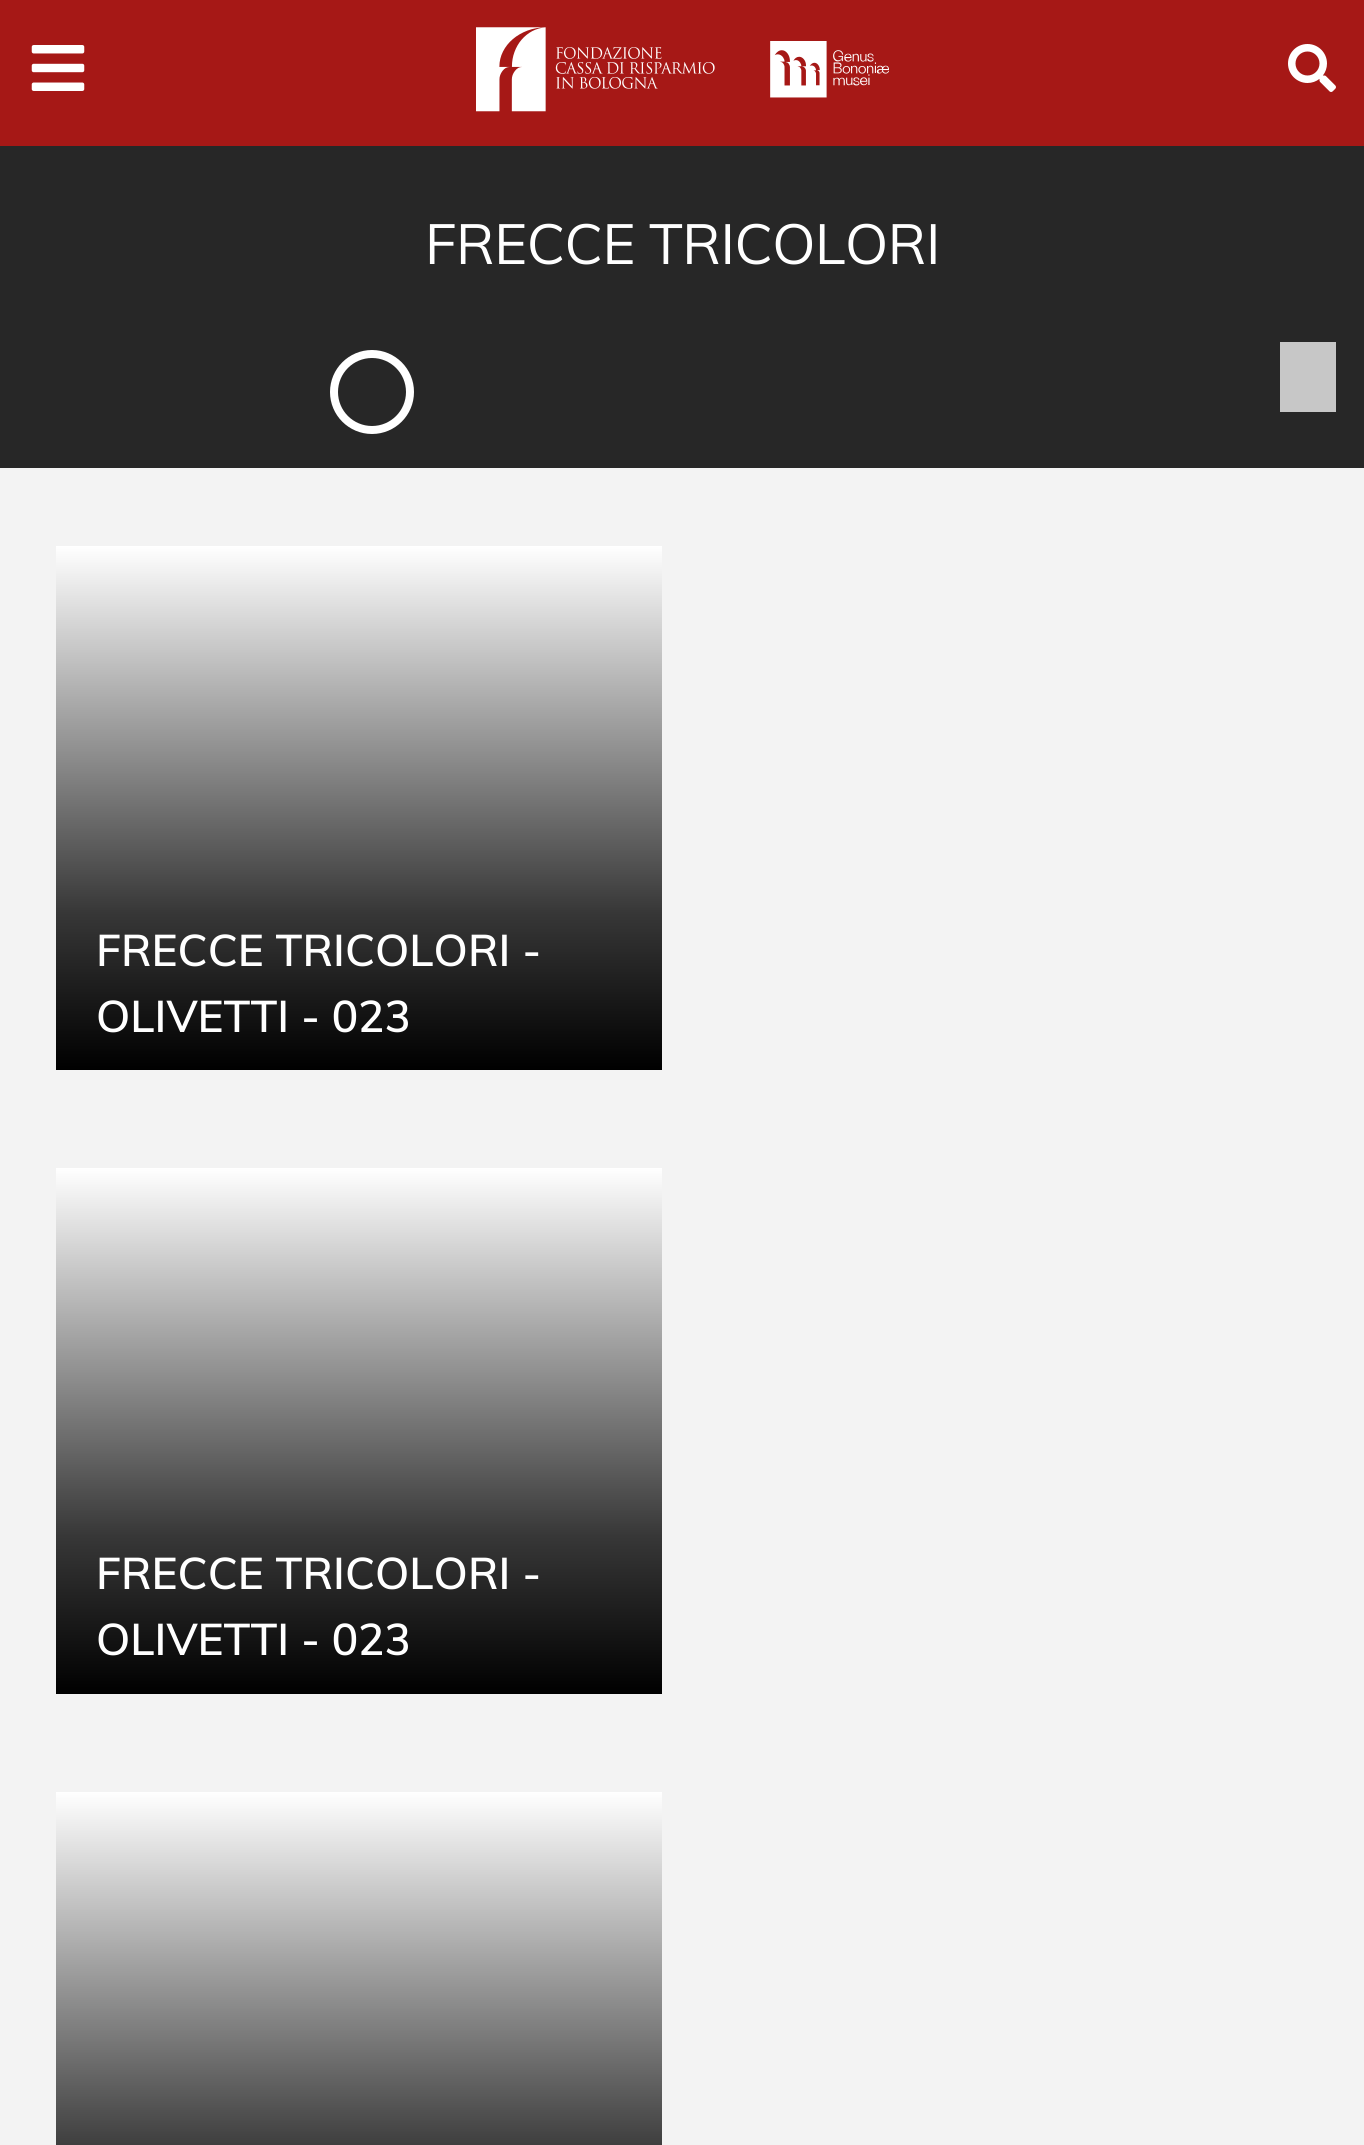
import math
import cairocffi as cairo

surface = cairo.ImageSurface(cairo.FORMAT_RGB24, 1364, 2145)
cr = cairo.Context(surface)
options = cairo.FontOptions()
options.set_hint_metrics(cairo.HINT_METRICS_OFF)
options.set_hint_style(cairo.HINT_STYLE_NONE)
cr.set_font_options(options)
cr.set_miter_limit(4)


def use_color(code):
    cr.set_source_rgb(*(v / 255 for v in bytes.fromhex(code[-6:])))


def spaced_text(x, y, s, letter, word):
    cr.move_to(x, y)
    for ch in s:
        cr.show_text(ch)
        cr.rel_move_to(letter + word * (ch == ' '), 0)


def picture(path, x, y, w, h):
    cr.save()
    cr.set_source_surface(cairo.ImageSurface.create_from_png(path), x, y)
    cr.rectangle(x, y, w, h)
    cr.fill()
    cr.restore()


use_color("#f3f3f3")
cr.paint()
use_color("#a61816")
cr.rectangle(0, 0, 1364, 146)
cr.fill()
picture("img1.png", 31, 45, 54, 46)
picture("img2.png", 476, 27, 239, 85)
picture("img3.png", 770, 41, 119, 57)
picture("img4.png", 1288, 44, 48, 48)
use_color("#272727")
cr.rectangle(0, 146, 1364, 322)
cr.fill()
cr.select_font_face("Muli")
cr.set_font_size(56)
use_color("#ffffff")
spaced_text(425, 264, "FRECCE TRICOLORI", -0.5, 0)
cr.new_path()
cr.arc(372, 392, 38, 0, 2 * math.pi)
cr.set_line_width(8)
cr.stroke()
use_color("#c7c7c7")
cr.rectangle(1280, 342, 56, 70)
cr.fill()
gradient = cairo.LinearGradient(359, 546, 359, 1070)
gradient.add_color_stop_rgba(0, 1, 1, 1, 1)
gradient.add_color_stop_rgba(0.7, 0.216, 0.216, 0.216, 1)
gradient.add_color_stop_rgba(1, 0, 0, 0, 1)
cr.set_source(gradient)
cr.rectangle(56, 546, 606, 524)
cr.fill()
cr.select_font_face("Muli SemiBold")
cr.set_font_size(44)
use_color("#ffffff")
cr.move_to(96, 966)
cr.show_text("FRECCE TRICOLORI -")
cr.move_to(96, 1032)
cr.show_text("OLIVETTI - 023")
gradient = cairo.LinearGradient(359, 1168, 359, 1694)
gradient.add_color_stop_rgba(0, 1, 1, 1, 1)
gradient.add_color_stop_rgba(0.7, 0.216, 0.216, 0.216, 1)
gradient.add_color_stop_rgba(1, 0, 0, 0, 1)
cr.set_source(gradient)
cr.rectangle(56, 1168, 606, 526)
cr.fill()
use_color("#ffffff")
cr.move_to(96, 1589)
cr.show_text("FRECCE TRICOLORI -")
cr.move_to(96, 1655)
cr.show_text("OLIVETTI - 023")
gradient = cairo.LinearGradient(359, 1792, 359, 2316)
gradient.add_color_stop_rgba(0, 1, 1, 1, 1)
gradient.add_color_stop_rgba(0.7, 0.216, 0.216, 0.216, 1)
gradient.add_color_stop_rgba(1, 0, 0, 0, 1)
cr.set_source(gradient)
cr.rectangle(56, 1792, 606, 353)
cr.fill()
surface.write_to_png("result.png")
